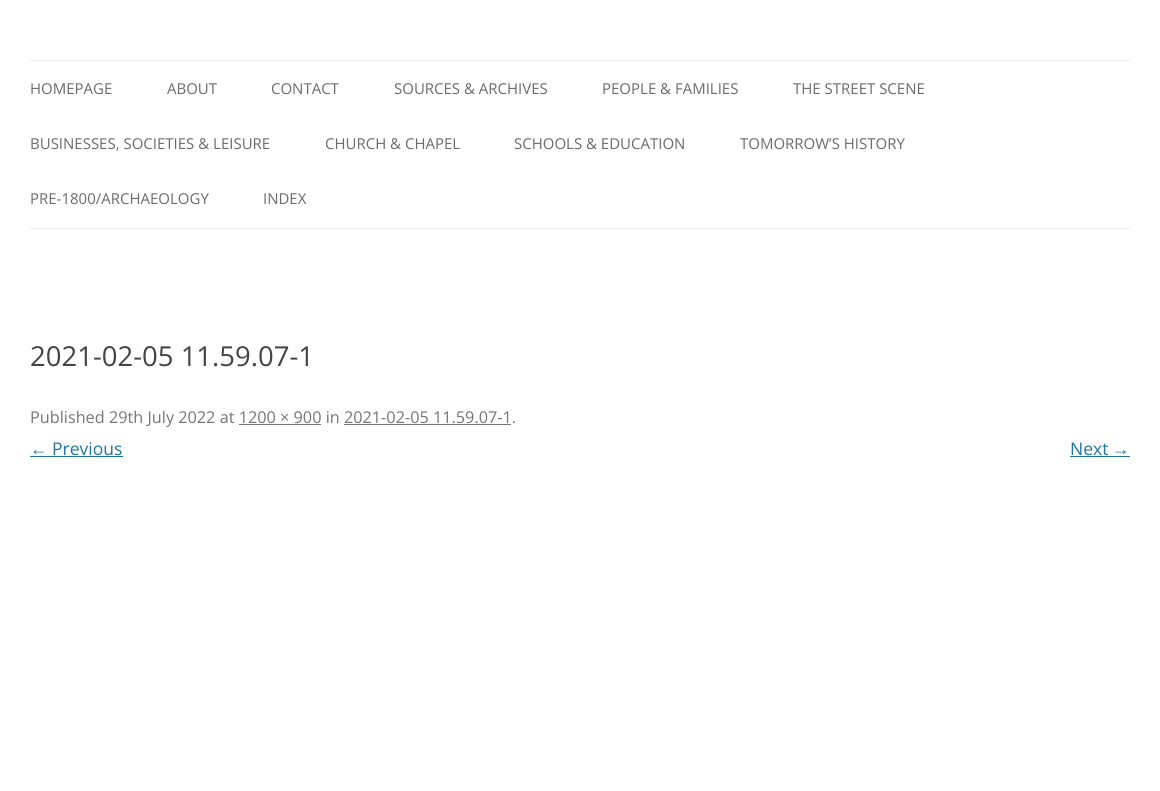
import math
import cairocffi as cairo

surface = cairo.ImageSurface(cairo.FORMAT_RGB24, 1160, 791)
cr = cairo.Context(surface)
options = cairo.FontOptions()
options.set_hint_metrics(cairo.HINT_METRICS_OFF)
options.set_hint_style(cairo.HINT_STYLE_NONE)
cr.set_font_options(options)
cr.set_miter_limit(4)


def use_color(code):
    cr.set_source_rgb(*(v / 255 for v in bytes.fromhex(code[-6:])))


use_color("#ffffff")
cr.paint()
use_color("#ededed")
cr.rectangle(30, 60, 1100, 1)
cr.fill()
cr.rectangle(30, 228, 1100, 1)
cr.fill()
cr.select_font_face("Open Sans")
cr.set_font_size(15)
use_color("#6a6a6a")
cr.move_to(30, 94)
cr.show_text("HOMEPAGE")
cr.move_to(167, 94)
cr.show_text("ABOUT")
cr.move_to(271, 94)
cr.show_text("CONTACT")
cr.move_to(394, 94)
cr.show_text("SOURCES & ARCHIVES")
cr.move_to(602, 94)
cr.show_text("PEOPLE & FAMILIES")
cr.move_to(793, 94)
cr.show_text("THE STREET SCENE")
cr.move_to(30, 149)
cr.show_text("BUSINESSES, SOCIETIES & LEISURE")
cr.move_to(325, 149)
cr.show_text("CHURCH & CHAPEL")
cr.move_to(514, 149)
cr.show_text("SCHOOLS & EDUCATION")
cr.move_to(740, 149)
cr.show_text("TOMORROW’S HISTORY")
cr.move_to(30, 204)
cr.show_text("PRE-1800/ARCHAEOLOGY")
cr.move_to(263, 204)
cr.show_text("INDEX")
cr.set_font_size(27.5)
use_color("#444444")
cr.move_to(30, 366)
cr.show_text("2021-02-05 11.59.07-1")
cr.set_font_size(16.25)
use_color("#757575")
cr.move_to(30, 423)
cr.show_text("Published 29th July 2022 at 1200 × 900 in 2021-02-05 11.59.07-1.")
cr.rectangle(239, 424, 82, 1)
cr.fill()
cr.rectangle(344, 424, 167, 1)
cr.fill()
cr.select_font_face("Liberation Sans")
cr.set_font_size(17.5)
use_color("#21759b")
cr.move_to(30, 455)
cr.show_text("←")
cr.rectangle(30, 456, 93, 1)
cr.fill()
cr.select_font_face("Open Sans")
cr.move_to(52, 455)
cr.show_text("Previous")
cr.move_to(1070, 455)
cr.show_text("Next")
cr.select_font_face("Liberation Sans")
cr.move_to(1112, 455)
cr.show_text("→")
cr.rectangle(1070, 456, 60, 1)
cr.fill()
surface.write_to_png("result.png")
